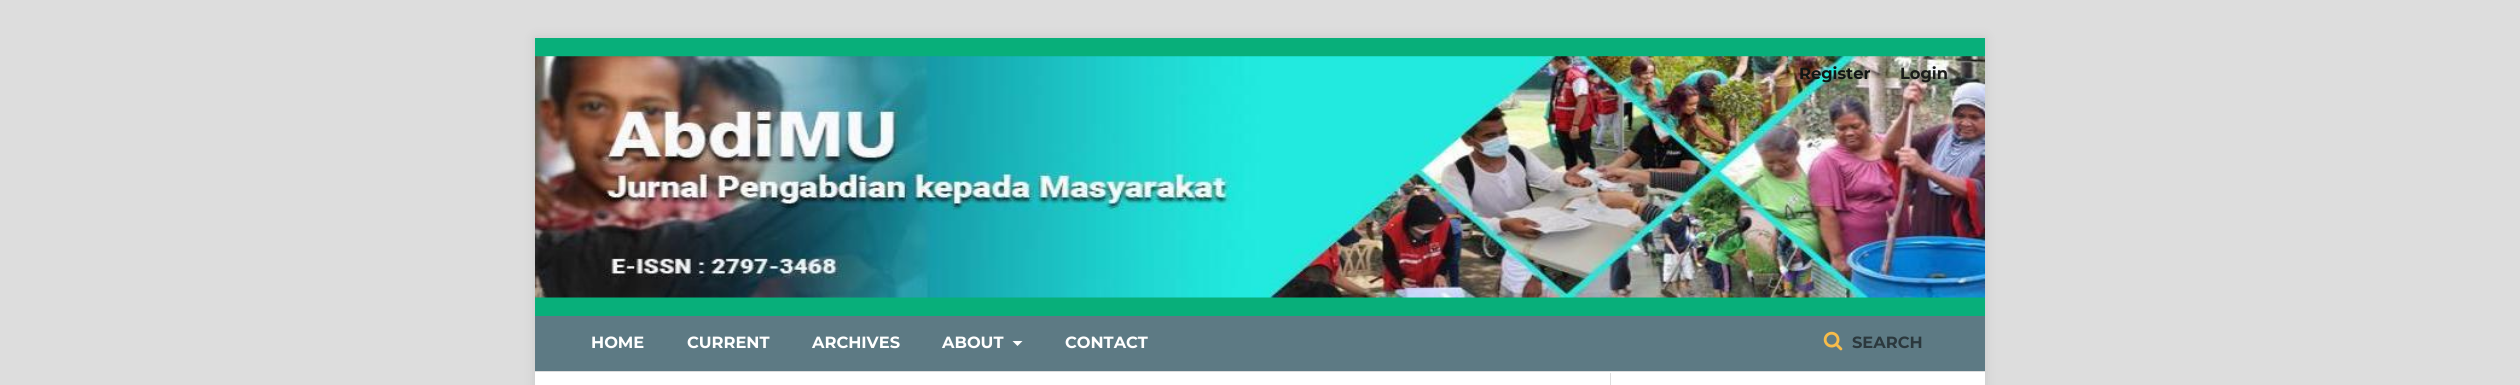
import math
import cairocffi as cairo

surface = cairo.ImageSurface(cairo.FORMAT_RGB24, 2520, 385)
cr = cairo.Context(surface)
options = cairo.FontOptions()
options.set_hint_metrics(cairo.HINT_METRICS_OFF)
options.set_hint_style(cairo.HINT_STYLE_NONE)
cr.set_font_options(options)
cr.set_miter_limit(4)


def use_color(code):
    cr.set_source_rgb(*(v / 255 for v in bytes.fromhex(code[-6:])))


def round_rect(x, y, w, h, r):
    cr.new_sub_path()
    for i, (u, v) in enumerate([(x + w - r, y + h - r), (x + r, y + h - r), (x + r, y + r), (x + w - r, y + r)]):
        cr.arc(u, v, r, i * math.pi / 2, (i + 1) * math.pi / 2)
    cr.close_path()


def shadow(x, y, w, h, r, blur, alpha):
    cr.push_group_with_content(cairo.CONTENT_ALPHA)
    cr.set_operator(cairo.OPERATOR_SOURCE)
    for i in range(15, -16, -2):
        e = blur * i / 6
        if min(w, h) + 2 * e > 0:
            cr.set_source_rgba(0, 0, 0, alpha * math.erfc((i - 1) / 8.5) / 2)
            round_rect(x - e, y - e, w + 2 * e, h + 2 * e, max(0, min(r + e + blur * .6, min(w, h) / 2 + e)))
            cr.fill()
    cr.mask(cr.pop_group())


def picture(path, x, y, w, h):
    cr.save()
    cr.set_source_surface(cairo.ImageSurface.create_from_png(path), x, y)
    cr.rectangle(x, y, w, h)
    cr.fill()
    cr.restore()


use_color("#dddddd")
cr.paint()
use_color("#000000")
shadow(535, 38, 1450, 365, 0, 6, 0.1)
use_color("#ffffff")
cr.rectangle(535, 372, 1450, 13)
cr.fill()
use_color("#dddddd")
cr.rectangle(535, 371, 1450, 1)
cr.fill()
use_color("#08af7a")
cr.rectangle(535, 38, 1450, 278)
cr.fill()
picture("img1.png", 535, 56, 1450, 242)
cr.select_font_face("Montserrat", cairo.FONT_SLANT_NORMAL, cairo.FONT_WEIGHT_BOLD)
cr.set_font_size(16.25)
use_color("#111614")
cr.move_to(1799, 79)
cr.show_text("Register")
use_color("#1a1b19")
cr.move_to(1900, 79)
cr.show_text("Login")
use_color("#5d7a84")
cr.rectangle(535, 316, 1450, 55)
cr.fill()
use_color("#ffffff")
cr.move_to(591, 348)
cr.show_text("HOME")
cr.move_to(687, 348)
cr.show_text("CURRENT")
cr.move_to(812, 348)
cr.show_text("ARCHIVES")
cr.move_to(942, 348)
cr.show_text("ABOUT")
cr.new_path()
cr.move_to(1012.5, 341)
cr.line_to(1022.5, 341)
cr.line_to(1017.5, 346)
cr.close_path()
cr.fill()
cr.move_to(1065, 348)
cr.show_text("CONTACT")
picture("img2.png", 1823, 331, 20, 20)
use_color("#2b383d")
cr.move_to(1852, 348)
cr.show_text("SEARCH")
use_color("#dddddd")
cr.rectangle(1610, 373, 1, 12)
cr.fill()
surface.write_to_png("result.png")
